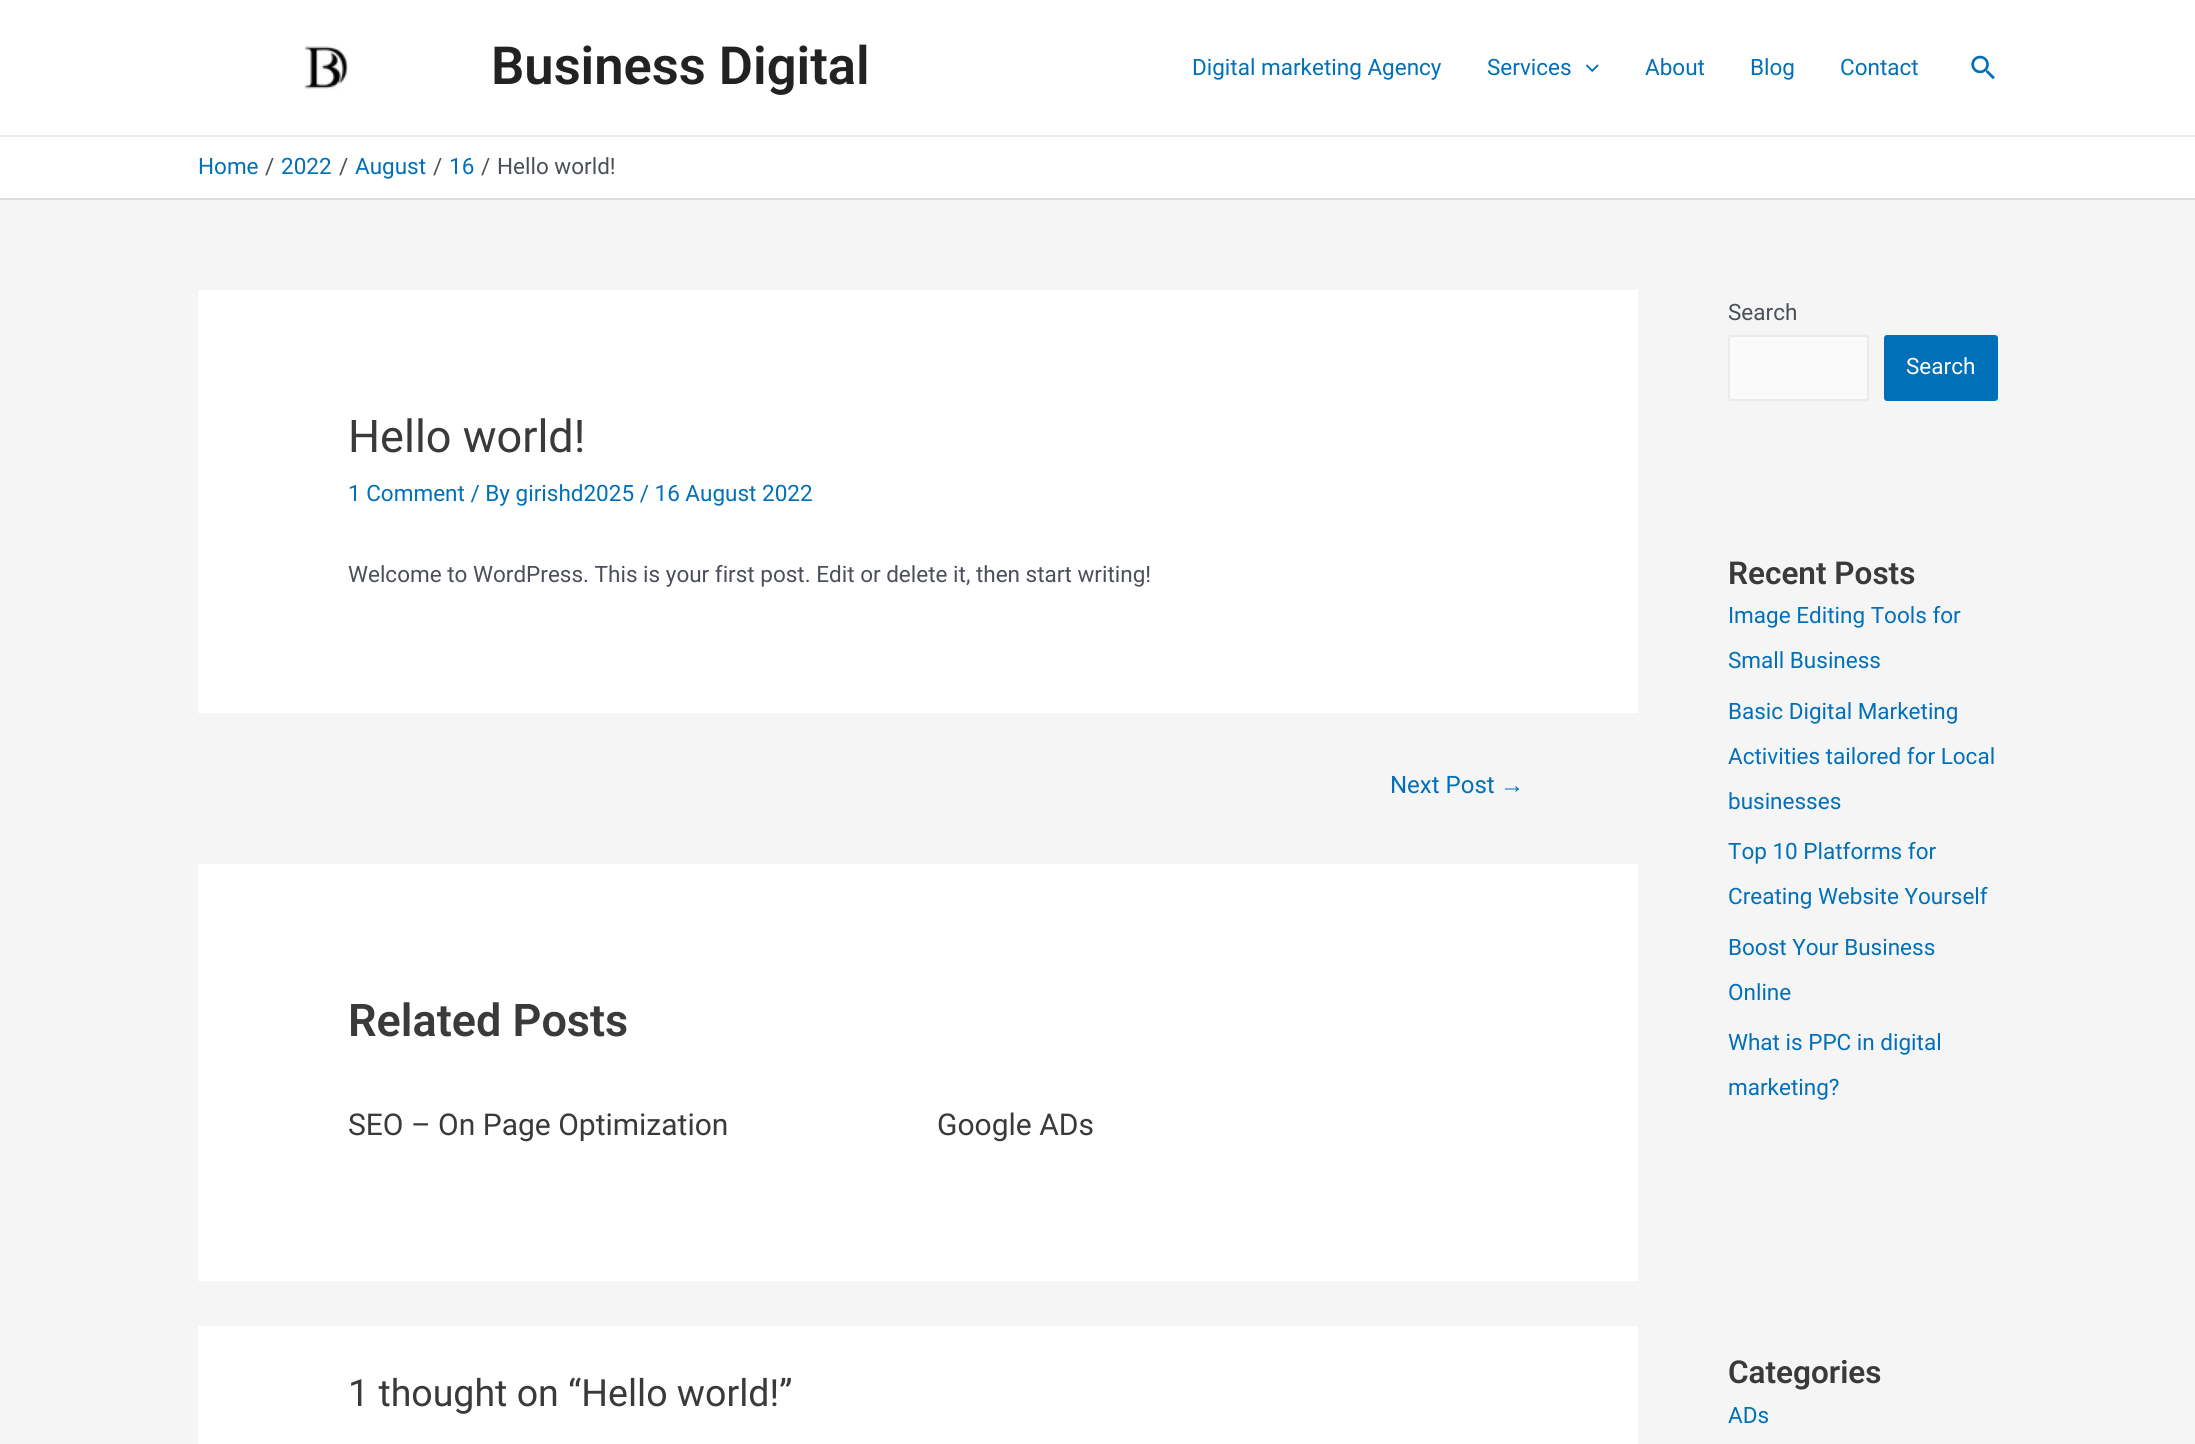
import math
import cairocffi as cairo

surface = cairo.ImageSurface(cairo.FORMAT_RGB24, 2195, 1444)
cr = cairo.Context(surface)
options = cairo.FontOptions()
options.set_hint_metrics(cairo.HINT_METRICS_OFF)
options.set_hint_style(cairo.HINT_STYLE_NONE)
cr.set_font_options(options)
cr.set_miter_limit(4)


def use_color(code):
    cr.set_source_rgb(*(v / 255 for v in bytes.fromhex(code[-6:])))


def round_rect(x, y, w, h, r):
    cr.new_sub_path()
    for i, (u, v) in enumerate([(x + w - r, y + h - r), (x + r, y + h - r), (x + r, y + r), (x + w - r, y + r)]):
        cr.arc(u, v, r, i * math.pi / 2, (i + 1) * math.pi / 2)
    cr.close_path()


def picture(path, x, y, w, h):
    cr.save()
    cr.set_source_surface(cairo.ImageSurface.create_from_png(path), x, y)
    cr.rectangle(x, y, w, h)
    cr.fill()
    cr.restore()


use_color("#f5f5f5")
cr.paint()
use_color("#ffffff")
cr.rectangle(0, 0, 2195, 135)
cr.fill()
use_color("#eaeaea")
cr.rectangle(0, 135, 2195, 2)
cr.fill()
picture("img1.png", 304, 46, 45, 43)
cr.select_font_face("Roboto SemiBold")
cr.set_font_size(52.5)
use_color("#222222")
cr.move_to(491, 84)
cr.show_text("Business Digital")
cr.select_font_face("Roboto")
cr.set_font_size(22.5)
use_color("#0170b9")
cr.move_to(1192, 75)
cr.show_text("Digital marketing Agency")
cr.move_to(1487, 75)
cr.show_text("Services")
picture("img2.png", 1586, 64, 13, 8)
cr.move_to(1645, 75)
cr.show_text("About")
cr.move_to(1750, 75)
cr.show_text("Blog")
cr.move_to(1840, 75)
cr.show_text("Contact")
picture("img3.png", 1971, 55, 24, 25)
use_color("#ffffff")
cr.rectangle(0, 137, 2195, 61)
cr.fill()
use_color("#dddddd")
cr.rectangle(0, 198, 2195, 2)
cr.fill()
use_color("#0170b9")
cr.move_to(198, 174)
cr.show_text("Home")
use_color("#4b4f58")
cr.move_to(265, 174)
cr.show_text("/")
use_color("#0170b9")
cr.move_to(281, 174)
cr.show_text("2022")
use_color("#4b4f58")
cr.move_to(339, 174)
cr.show_text("/")
use_color("#0170b9")
cr.move_to(355, 174)
cr.show_text("August")
use_color("#4b4f58")
cr.move_to(433, 174)
cr.show_text("/")
use_color("#0170b9")
cr.move_to(449, 174)
cr.show_text("16")
use_color("#4b4f58")
cr.move_to(481, 174)
cr.show_text("/")
cr.move_to(497, 174)
cr.show_text("Hello world!")
use_color("#ffffff")
cr.rectangle(198, 290, 1440, 423)
cr.fill()
cr.set_font_size(45)
use_color("#3a3a3a")
cr.move_to(348, 452)
cr.show_text("Hello world!")
cr.set_font_size(22.5)
use_color("#0170b9")
cr.move_to(348, 501)
cr.show_text("1 Comment / By girishd2025 / 16 August 2022")
use_color("#4b4f58")
cr.move_to(348, 582)
cr.show_text("Welcome to WordPress. This is your first post. Edit or delete it, then start writing!")
cr.set_font_size(24)
use_color("#0170b9")
cr.move_to(1390, 793)
cr.show_text("Next Post")
cr.select_font_face("Liberation Sans")
cr.move_to(1500, 793)
cr.show_text("→")
use_color("#ffffff")
cr.rectangle(198, 864, 1440, 417)
cr.fill()
cr.select_font_face("Roboto SemiBold")
cr.set_font_size(45)
use_color("#3a3a3a")
cr.move_to(348, 1036)
cr.show_text("Related Posts")
cr.select_font_face("Roboto")
cr.set_font_size(30)
cr.move_to(348, 1135)
cr.show_text("SEO – On Page Optimization")
cr.move_to(937, 1135)
cr.show_text("Google ADs")
use_color("#ffffff")
cr.rectangle(198, 1326, 1440, 118)
cr.fill()
cr.set_font_size(37.5)
use_color("#3a3a3a")
cr.move_to(348, 1406)
cr.show_text("1 thought on “Hello world!”")
cr.set_font_size(22.5)
use_color("#4b4f58")
cr.move_to(1728, 320)
cr.show_text("Search")
use_color("#fafafa")
round_rect(1729, 336, 139, 64, 2)
cr.fill_preserve()
use_color("#eaeaea")
cr.stroke()
use_color("#0170b9")
round_rect(1884, 335, 114, 66, 3)
cr.fill()
use_color("#ffffff")
cr.move_to(1906, 374)
cr.show_text("Search")
cr.select_font_face("Roboto SemiBold")
cr.set_font_size(31.5)
use_color("#3a3a3a")
cr.move_to(1728, 584)
cr.show_text("Recent Posts")
cr.select_font_face("Roboto")
cr.set_font_size(22.5)
use_color("#0170b9")
cr.move_to(1728, 623)
cr.show_text("Image Editing Tools for")
cr.move_to(1728, 668)
cr.show_text("Small Business")
cr.move_to(1728, 719)
cr.show_text("Basic Digital Marketing")
cr.move_to(1728, 764)
cr.show_text("Activities tailored for Local")
cr.move_to(1728, 809)
cr.show_text("businesses")
cr.move_to(1728, 859)
cr.show_text("Top 10 Platforms for")
cr.move_to(1728, 904)
cr.show_text("Creating Website Yourself")
cr.move_to(1728, 955)
cr.show_text("Boost Your Business")
cr.move_to(1728, 1000)
cr.show_text("Online")
cr.move_to(1728, 1050)
cr.show_text("What is PPC in digital")
cr.move_to(1728, 1095)
cr.show_text("marketing?")
cr.select_font_face("Roboto SemiBold")
cr.set_font_size(31.5)
use_color("#3a3a3a")
cr.move_to(1728, 1383)
cr.show_text("Categories")
cr.select_font_face("Roboto")
cr.set_font_size(22.5)
use_color("#0170b9")
cr.move_to(1728, 1423)
cr.show_text("ADs")
surface.write_to_png("result.png")
